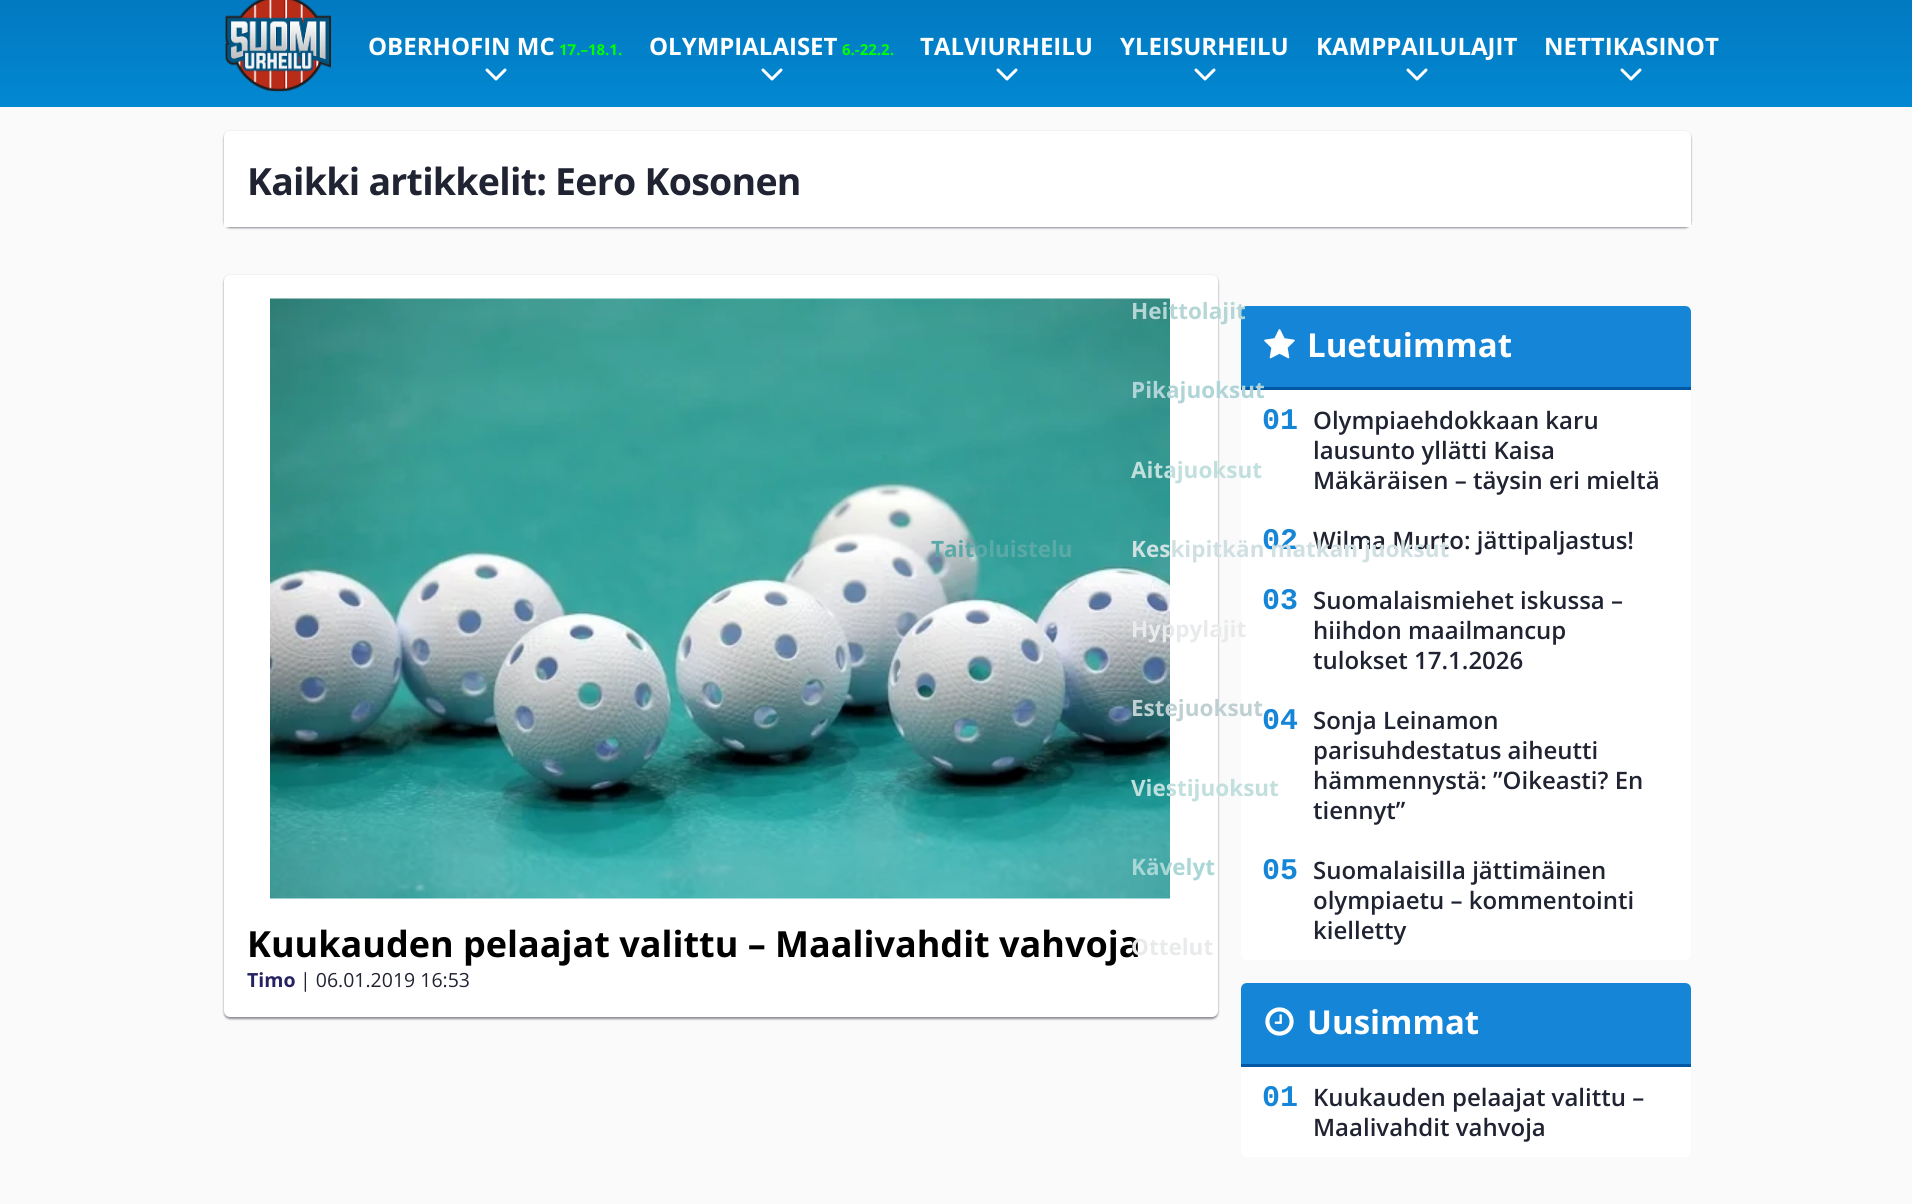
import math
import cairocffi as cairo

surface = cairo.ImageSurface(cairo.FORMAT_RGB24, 1912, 1204)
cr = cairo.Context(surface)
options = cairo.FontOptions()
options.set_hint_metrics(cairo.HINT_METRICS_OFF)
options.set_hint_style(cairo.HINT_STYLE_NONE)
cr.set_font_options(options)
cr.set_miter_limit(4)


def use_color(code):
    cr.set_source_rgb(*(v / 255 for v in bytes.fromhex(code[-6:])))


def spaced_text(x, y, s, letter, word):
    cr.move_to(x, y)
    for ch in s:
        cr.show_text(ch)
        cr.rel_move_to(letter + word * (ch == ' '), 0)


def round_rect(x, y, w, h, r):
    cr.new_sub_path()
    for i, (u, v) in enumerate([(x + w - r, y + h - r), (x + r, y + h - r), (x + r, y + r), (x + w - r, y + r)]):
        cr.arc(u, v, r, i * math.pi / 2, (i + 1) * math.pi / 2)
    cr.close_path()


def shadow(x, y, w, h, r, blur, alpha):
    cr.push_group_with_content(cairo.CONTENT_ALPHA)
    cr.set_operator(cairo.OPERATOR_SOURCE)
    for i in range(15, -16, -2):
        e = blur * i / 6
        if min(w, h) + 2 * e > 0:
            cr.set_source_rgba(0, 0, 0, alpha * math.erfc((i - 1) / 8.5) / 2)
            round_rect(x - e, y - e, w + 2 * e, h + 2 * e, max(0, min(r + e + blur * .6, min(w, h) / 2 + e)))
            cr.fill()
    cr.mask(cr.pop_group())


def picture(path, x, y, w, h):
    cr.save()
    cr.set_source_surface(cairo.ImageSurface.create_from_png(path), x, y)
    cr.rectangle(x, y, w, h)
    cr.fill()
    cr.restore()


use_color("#fafafa")
cr.paint()
gradient = cairo.LinearGradient(956, 107, 956, -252)
gradient.add_color_stop_rgba(0, 0.008, 0.533, 0.82, 1)
gradient.add_color_stop_rgba(1, 0.008, 0.341, 0.608, 1)
cr.set_source(gradient)
cr.rectangle(0, 0, 1912, 107)
cr.fill()
picture("img1.png", 225, 0, 107, 92)
cr.select_font_face("Open Sans", cairo.FONT_SLANT_NORMAL, cairo.FONT_WEIGHT_BOLD)
cr.set_font_size(24)
use_color("#ffffff")
cr.move_to(368, 55)
cr.show_text("OBERHOFIN MC")
cr.set_font_size(15)
use_color("#00ff00")
cr.move_to(559, 55)
cr.show_text("17.–18.1.")
cr.new_path()
cr.move_to(487, 70)
cr.line_to(496, 79)
cr.line_to(505, 70)
use_color("#ffffff")
cr.set_line_width(3)
cr.set_line_cap(cairo.LINE_CAP_ROUND)
cr.set_line_join(cairo.LINE_JOIN_ROUND)
cr.stroke()
cr.set_font_size(24)
cr.move_to(649, 55)
cr.show_text("OLYMPIALAISET")
cr.set_font_size(15)
use_color("#00ff00")
cr.move_to(842, 55)
cr.show_text("6.-22.2.")
cr.new_path()
cr.move_to(763, 70)
cr.line_to(772, 79)
cr.line_to(781, 70)
use_color("#ffffff")
cr.stroke()
cr.set_font_size(24)
cr.move_to(920, 55)
cr.show_text("TALVIURHEILU")
cr.new_path()
cr.move_to(998, 70)
cr.line_to(1007, 79)
cr.line_to(1016, 70)
cr.stroke()
use_color("#202332")
shadow(224, 276, 994, 743, 6, 1, 0.5)
use_color("#ffffff")
round_rect(224, 275, 994, 742, 6)
cr.fill()
picture("img2.png", 270, 298, 900, 601)
cr.set_font_size(22.5)
use_color("#5ba9a7")
cr.move_to(931, 557)
cr.show_text("Taitoluistelu")
cr.set_font_size(24)
use_color("#ffffff")
cr.move_to(1120, 55)
cr.show_text("YLEISURHEILU")
cr.new_path()
cr.move_to(1196, 70)
cr.line_to(1205, 79)
cr.line_to(1214, 70)
cr.stroke()
round_rect(1241, 306, 450, 654, 6)
cr.fill()
use_color("#1585d7")
cr.new_path()
cr.move_to(1247, 306)
cr.line_to(1685, 306)
cr.curve_to(1688.5, 306, 1691, 308.5, 1691, 312)
cr.line_to(1691, 390)
cr.line_to(1241, 390)
cr.line_to(1241, 312)
cr.curve_to(1241, 308.5, 1243.5, 306, 1247, 306)
cr.close_path()
cr.fill()
cr.set_font_size(22.5)
use_color("#b6d6d5")
cr.move_to(1131, 319)
cr.show_text("Heittolajit")
use_color("#0058a4")
cr.rectangle(1241, 387, 450, 3)
cr.fill()
use_color("#b0d4d7")
cr.move_to(1131, 398)
cr.show_text("Pikajuoksut")
use_color("#c0dfdd")
cr.move_to(1131, 478)
cr.show_text("Aitajuoksut")
cr.select_font_face("Liberation Mono", cairo.FONT_SLANT_NORMAL, cairo.FONT_WEIGHT_BOLD)
cr.set_font_size(30)
use_color("#1585d7")
cr.move_to(1262, 549)
cr.show_text("02")
cr.select_font_face("Open Sans SemiBold")
cr.set_font_size(24)
use_color("#202332")
cr.move_to(1313, 549)
cr.show_text("Wilma Murto: jättipaljastus!")
cr.select_font_face("Open Sans", cairo.FONT_SLANT_NORMAL, cairo.FONT_WEIGHT_BOLD)
cr.set_font_size(22.5)
use_color("#d0e0e2")
cr.move_to(1131, 557)
cr.show_text("Keskipitkän matkan juoksut")
use_color("#e9eaeb")
cr.move_to(1131, 637)
cr.show_text("Hyppylajit")
use_color("#bfd0d2")
cr.move_to(1131, 716)
cr.show_text("Estejuoksut")
use_color("#c0dfdd")
cr.move_to(1131, 796)
cr.show_text("Viestijuoksut")
use_color("#a9d7d6")
cr.move_to(1131, 875)
cr.show_text("Kävelyt")
cr.set_font_size(36)
use_color("#000000")
cr.move_to(247, 957)
cr.show_text("Kuukauden pelaajat valittu – Maalivahdit vahvoja")
cr.set_font_size(22.5)
use_color("#e9eaeb")
cr.move_to(1131, 955)
cr.show_text("Ottelut")
cr.set_font_size(24)
use_color("#ffffff")
cr.move_to(1316, 55)
cr.show_text("KAMPPAILULAJIT")
cr.new_path()
cr.move_to(1408, 70)
cr.line_to(1417, 79)
cr.line_to(1426, 70)
cr.stroke()
cr.move_to(1544, 55)
cr.show_text("NETTIKASINOT")
cr.new_path()
cr.move_to(1622, 70)
cr.line_to(1631, 79)
cr.line_to(1640, 70)
cr.stroke()
use_color("#202332")
shadow(224, 132, 1467, 96, 6, 1, 0.5)
use_color("#ffffff")
cr.new_path()
cr.move_to(230, 131)
cr.line_to(1685, 131)
cr.curve_to(1688.5, 131, 1691, 133.5, 1691, 137)
cr.line_to(1691, 227)
cr.line_to(224, 227)
cr.line_to(224, 137)
cr.curve_to(224, 133.5, 226.5, 131, 230, 131)
cr.close_path()
cr.fill()
cr.set_font_size(37.5)
use_color("#202332")
spaced_text(247, 195, "Kaikki artikkelit: Eero Kosonen", -0.75, 0)
cr.set_font_size(19.5)
use_color("#262261")
cr.move_to(247, 987)
cr.show_text("Timo")
cr.select_font_face("Open Sans")
use_color("#202332")
cr.move_to(300, 987)
cr.show_text("| 06.01.2019 16:53")
picture("img3.png", 1264, 329, 31, 30)
cr.select_font_face("Open Sans", cairo.FONT_SLANT_NORMAL, cairo.FONT_WEIGHT_BOLD)
cr.set_font_size(33)
use_color("#ffffff")
cr.move_to(1307, 357)
cr.show_text("Luetuimmat")
cr.select_font_face("Liberation Mono", cairo.FONT_SLANT_NORMAL, cairo.FONT_WEIGHT_BOLD)
cr.set_font_size(30)
use_color("#1585d7")
cr.move_to(1262, 429)
cr.show_text("01")
cr.select_font_face("Open Sans SemiBold")
cr.set_font_size(24)
use_color("#202332")
cr.move_to(1313, 429)
cr.show_text("Olympiaehdokkaan karu")
cr.move_to(1313, 459)
cr.show_text("lausunto yllätti Kaisa")
cr.move_to(1313, 489)
cr.show_text("Mäkäräisen – täysin eri mieltä")
cr.select_font_face("Liberation Mono", cairo.FONT_SLANT_NORMAL, cairo.FONT_WEIGHT_BOLD)
cr.set_font_size(30)
use_color("#1585d7")
cr.move_to(1262, 609)
cr.show_text("03")
cr.select_font_face("Open Sans SemiBold")
cr.set_font_size(24)
use_color("#202332")
cr.move_to(1313, 609)
cr.show_text("Suomalaismiehet iskussa –")
cr.move_to(1313, 639)
cr.show_text("hiihdon maailmancup")
cr.move_to(1313, 669)
cr.show_text("tulokset 17.1.2026")
cr.select_font_face("Liberation Mono", cairo.FONT_SLANT_NORMAL, cairo.FONT_WEIGHT_BOLD)
cr.set_font_size(30)
use_color("#1585d7")
cr.move_to(1262, 729)
cr.show_text("04")
cr.select_font_face("Open Sans SemiBold")
cr.set_font_size(24)
use_color("#202332")
cr.move_to(1313, 729)
cr.show_text("Sonja Leinamon")
cr.move_to(1313, 759)
cr.show_text("parisuhdestatus aiheutti")
cr.move_to(1313, 789)
cr.show_text("hämmennystä: ”Oikeasti? En")
cr.move_to(1313, 819)
cr.show_text("tiennyt”")
cr.select_font_face("Liberation Mono", cairo.FONT_SLANT_NORMAL, cairo.FONT_WEIGHT_BOLD)
cr.set_font_size(30)
use_color("#1585d7")
cr.move_to(1262, 879)
cr.show_text("05")
cr.select_font_face("Open Sans SemiBold")
cr.set_font_size(24)
use_color("#202332")
cr.move_to(1313, 879)
cr.show_text("Suomalaisilla jättimäinen")
cr.move_to(1313, 909)
cr.show_text("olympiaetu – kommentointi")
cr.move_to(1313, 939)
cr.show_text("kielletty")
use_color("#ffffff")
round_rect(1241, 983, 450, 174, 6)
cr.fill()
use_color("#1585d7")
cr.new_path()
cr.move_to(1247, 983)
cr.line_to(1685, 983)
cr.curve_to(1688.5, 983, 1691, 985.5, 1691, 989)
cr.line_to(1691, 1067)
cr.line_to(1241, 1067)
cr.line_to(1241, 989)
cr.curve_to(1241, 985.5, 1243.5, 983, 1247, 983)
cr.close_path()
cr.fill()
use_color("#0058a4")
cr.rectangle(1241, 1064, 450, 3)
cr.fill()
picture("img4.png", 1265, 1007, 29, 29)
cr.select_font_face("Open Sans", cairo.FONT_SLANT_NORMAL, cairo.FONT_WEIGHT_BOLD)
cr.set_font_size(33)
use_color("#ffffff")
cr.move_to(1307, 1034)
cr.show_text("Uusimmat")
cr.select_font_face("Liberation Mono", cairo.FONT_SLANT_NORMAL, cairo.FONT_WEIGHT_BOLD)
cr.set_font_size(30)
use_color("#1585d7")
cr.move_to(1262, 1106)
cr.show_text("01")
cr.select_font_face("Open Sans SemiBold")
cr.set_font_size(24)
use_color("#202332")
cr.move_to(1313, 1106)
cr.show_text("Kuukauden pelaajat valittu –")
cr.move_to(1313, 1136)
cr.show_text("Maalivahdit vahvoja")
surface.write_to_png("result.png")
